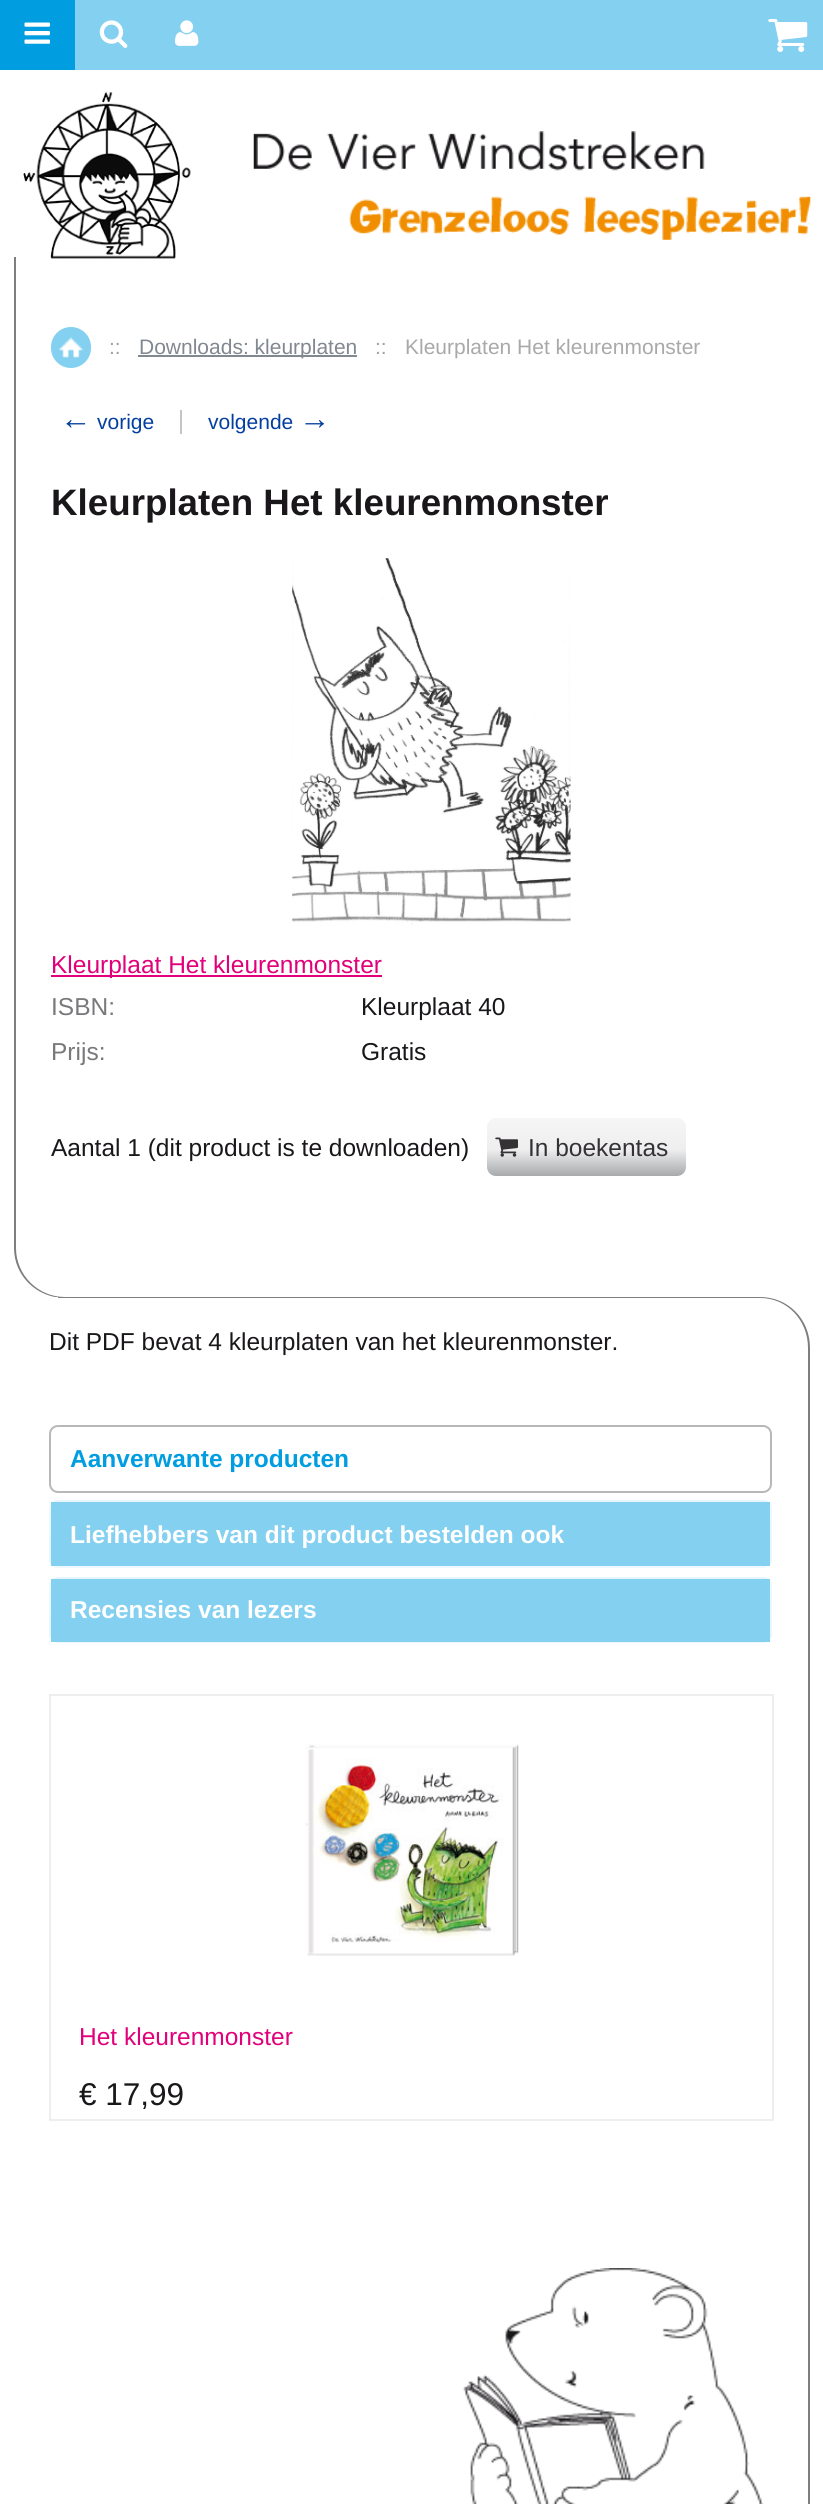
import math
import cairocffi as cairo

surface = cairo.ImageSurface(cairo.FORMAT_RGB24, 823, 2504)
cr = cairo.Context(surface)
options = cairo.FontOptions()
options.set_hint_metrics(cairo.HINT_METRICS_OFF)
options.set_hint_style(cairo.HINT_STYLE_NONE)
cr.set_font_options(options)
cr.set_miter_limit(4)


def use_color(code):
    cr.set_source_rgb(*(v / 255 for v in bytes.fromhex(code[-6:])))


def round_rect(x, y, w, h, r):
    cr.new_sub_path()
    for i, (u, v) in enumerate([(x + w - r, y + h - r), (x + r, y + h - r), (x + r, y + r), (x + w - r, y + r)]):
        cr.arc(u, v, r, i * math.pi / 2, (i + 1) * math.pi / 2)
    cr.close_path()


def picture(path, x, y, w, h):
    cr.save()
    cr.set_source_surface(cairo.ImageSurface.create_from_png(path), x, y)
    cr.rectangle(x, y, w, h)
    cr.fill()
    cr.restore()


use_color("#ffffff")
cr.paint()
use_color("#83d0f0")
cr.rectangle(75, 0, 748, 70)
cr.fill()
use_color("#009ee0")
cr.rectangle(0, 0, 75, 70)
cr.fill()
picture("img1.png", 24, 22, 26, 22)
picture("img2.png", 99, 20, 29, 28)
picture("img3.png", 175, 20, 24, 26)
picture("img4.png", 23, 92, 168, 167)
picture("img5.png", 253, 131, 558, 109)
use_color("#7e7d7f")
cr.rectangle(14, 257, 2, 18)
cr.fill()
picture("img6.png", 768, 19, 40, 33)
cr.set_fill_rule(cairo.FILL_RULE_EVEN_ODD)
cr.new_path()
cr.move_to(14, 275)
cr.line_to(810, 275)
cr.line_to(810, 1298)
cr.line_to(65, 1298)
cr.curve_to(37, 1298, 14, 1276, 14, 1248)
cr.close_path()
cr.move_to(16, 275)
cr.line_to(810, 275)
cr.line_to(810, 1297)
cr.line_to(65, 1297)
cr.curve_to(38, 1297, 16, 1275, 16, 1248)
cr.close_path()
cr.fill()
use_color("#83d0f0")
round_rect(51, 327, 40, 41, 20)
cr.fill()
picture("img7.png", 59, 337, 24, 21)
cr.select_font_face("Liberation Sans")
cr.set_font_size(21)
use_color("#a2a2a2")
cr.move_to(109, 354)
cr.show_text("::")
use_color("#818891")
cr.rectangle(138, 355, 219, 2)
cr.fill()
cr.move_to(139, 354)
cr.show_text("Downloads: kleurplaten")
use_color("#a2a2a2")
cr.move_to(375, 354)
cr.show_text("::")
use_color("#a9a9a9")
cr.move_to(405, 354)
cr.show_text("Kleurplaten Het kleurenmonster")
cr.set_font_size(31.5)
use_color("#043fa0")
cr.move_to(60, 429)
cr.show_text("←")
cr.set_font_size(21)
cr.move_to(97, 429)
cr.show_text("vorige")
use_color("#c5c5c5")
cr.rectangle(180, 410, 2, 24)
cr.fill()
use_color("#043fa0")
cr.move_to(208, 429)
cr.show_text("volgende")
cr.set_font_size(31.5)
cr.move_to(299, 429)
cr.show_text("→")
cr.select_font_face("Liberation Sans", cairo.FONT_SLANT_NORMAL, cairo.FONT_WEIGHT_BOLD)
cr.set_font_size(36.75)
use_color("#1a171b")
cr.move_to(51, 515)
cr.show_text("Kleurplaten Het kleurenmonster")
picture("img8.png", 292, 558, 279, 367)
use_color("#e2007a")
cr.rectangle(51, 975, 331, 2)
cr.fill()
cr.select_font_face("Liberation Sans")
cr.set_font_size(24.5)
cr.move_to(51, 973)
cr.show_text("Kleurplaat Het kleurenmonster")
use_color("#7a787b")
cr.move_to(51, 1015)
cr.show_text("ISBN:")
use_color("#1a171b")
cr.move_to(361, 1015)
cr.show_text("Kleurplaat 40")
use_color("#7a787b")
cr.move_to(51, 1060)
cr.show_text("Prijs:")
use_color("#1a171b")
cr.move_to(361, 1060)
cr.show_text("Gratis")
cr.move_to(51, 1156)
cr.show_text("Aantal 1 (dit product is te downloaden)")
gradient = cairo.LinearGradient(586, 1118, 586, 1176)
gradient.add_color_stop_rgba(0, 0.965, 0.965, 0.969, 1)
gradient.add_color_stop_rgba(0.55, 0.933, 0.933, 0.937, 1)
gradient.add_color_stop_rgba(1, 0.655, 0.663, 0.667, 1)
cr.set_source(gradient)
round_rect(487, 1118, 199, 58, 9)
cr.fill()
picture("img9.png", 495, 1137, 23, 20)
use_color("#353236")
cr.move_to(528, 1156)
cr.show_text("In boekentas")
use_color("#ffffff")
cr.rectangle(58, 1297, 752, 1)
cr.fill()
use_color("#7e7d7f")
cr.new_path()
cr.move_to(14, 1297)
cr.line_to(760, 1297)
cr.curve_to(788, 1297, 810, 1319, 810, 1348)
cr.line_to(810, 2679)
cr.line_to(14, 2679)
cr.close_path()
cr.move_to(14, 1298)
cr.line_to(760, 1298)
cr.curve_to(787, 1298, 808, 1320, 808, 1348)
cr.line_to(808, 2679)
cr.line_to(14, 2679)
cr.close_path()
cr.fill()
use_color("#ffffff")
cr.rectangle(14, 1297, 44, 1)
cr.fill()
use_color("#1a171b")
cr.move_to(49, 1350)
cr.show_text("Dit PDF bevat 4 kleurplaten van het kleurenmonster.")
round_rect(50, 1426, 721, 66, 8)
use_color("#b7b8b9")
cr.stroke()
cr.select_font_face("Liberation Sans", cairo.FONT_SLANT_NORMAL, cairo.FONT_WEIGHT_BOLD)
use_color("#009ee0")
cr.move_to(70, 1467)
cr.show_text("Aanverwante producten")
cr.save()
cr.set_fill_rule(cairo.FILL_RULE_WINDING)
round_rect(49, 1500, 723, 68, 9)
cr.clip()
gradient = cairo.LinearGradient(410, 1437, 410, 1502)
gradient.add_color_stop_rgba(0, 0.933, 0.973, 1, 1)
gradient.add_color_stop_rgba(1, 0.902, 0.961, 1, 1)
cr.set_source(gradient)
cr.rectangle(49, 1500, 723, 2)
cr.fill()
gradient = cairo.LinearGradient(410, 1502, 410, 1566)
gradient.add_color_stop_rgba(0, 0.933, 0.973, 1, 1)
gradient.add_color_stop_rgba(1, 0.902, 0.961, 1, 1)
cr.set_source(gradient)
cr.rectangle(49, 1503, 723, 62)
cr.fill()
gradient = cairo.LinearGradient(410, 1566, 410, 1631)
gradient.add_color_stop_rgba(0, 0.933, 0.973, 1, 1)
gradient.add_color_stop_rgba(1, 0.902, 0.961, 1, 1)
cr.set_source(gradient)
cr.rectangle(49, 1566, 723, 2)
cr.fill()
cr.restore()
use_color("#83d0f0")
cr.rectangle(51, 1502, 719, 64)
cr.fill()
use_color("#ffffff")
cr.move_to(70, 1543)
cr.show_text("Liefhebbers van dit product bestelden ook")
cr.save()
cr.set_fill_rule(cairo.FILL_RULE_WINDING)
round_rect(49, 1577, 723, 66, 9)
cr.clip()
gradient = cairo.LinearGradient(410, 1516, 410, 1579)
gradient.add_color_stop_rgba(0, 0.933, 0.973, 1, 1)
gradient.add_color_stop_rgba(1, 0.902, 0.961, 1, 1)
cr.set_source(gradient)
cr.rectangle(49, 1577, 723, 2)
cr.fill()
gradient = cairo.LinearGradient(410, 1579, 410, 1642)
gradient.add_color_stop_rgba(0, 0.933, 0.973, 1, 1)
gradient.add_color_stop_rgba(1, 0.902, 0.961, 1, 1)
cr.set_source(gradient)
cr.rectangle(49, 1580, 723, 60)
cr.fill()
gradient = cairo.LinearGradient(410, 1642, 410, 1705)
gradient.add_color_stop_rgba(0, 0.933, 0.973, 1, 1)
gradient.add_color_stop_rgba(1, 0.902, 0.961, 1, 1)
cr.set_source(gradient)
cr.rectangle(49, 1642, 723, 1)
cr.fill()
cr.restore()
use_color("#83d0f0")
cr.rectangle(51, 1579, 719, 63)
cr.fill()
use_color("#ffffff")
cr.move_to(70, 1618)
cr.show_text("Recensies van lezers")
cr.rectangle(50, 1695, 723, 425)
use_color("#eeeeee")
cr.stroke()
picture("img10.png", 305, 1744, 214, 212)
cr.select_font_face("Liberation Sans")
use_color("#e2007a")
cr.move_to(79, 2045)
cr.show_text("Het kleurenmonster")
cr.set_font_size(31.5)
use_color("#1a171b")
cr.move_to(79, 2105)
cr.show_text("€ 17,99")
picture("img11.png", 463, 2268, 301, 236)
surface.write_to_png("result.png")
